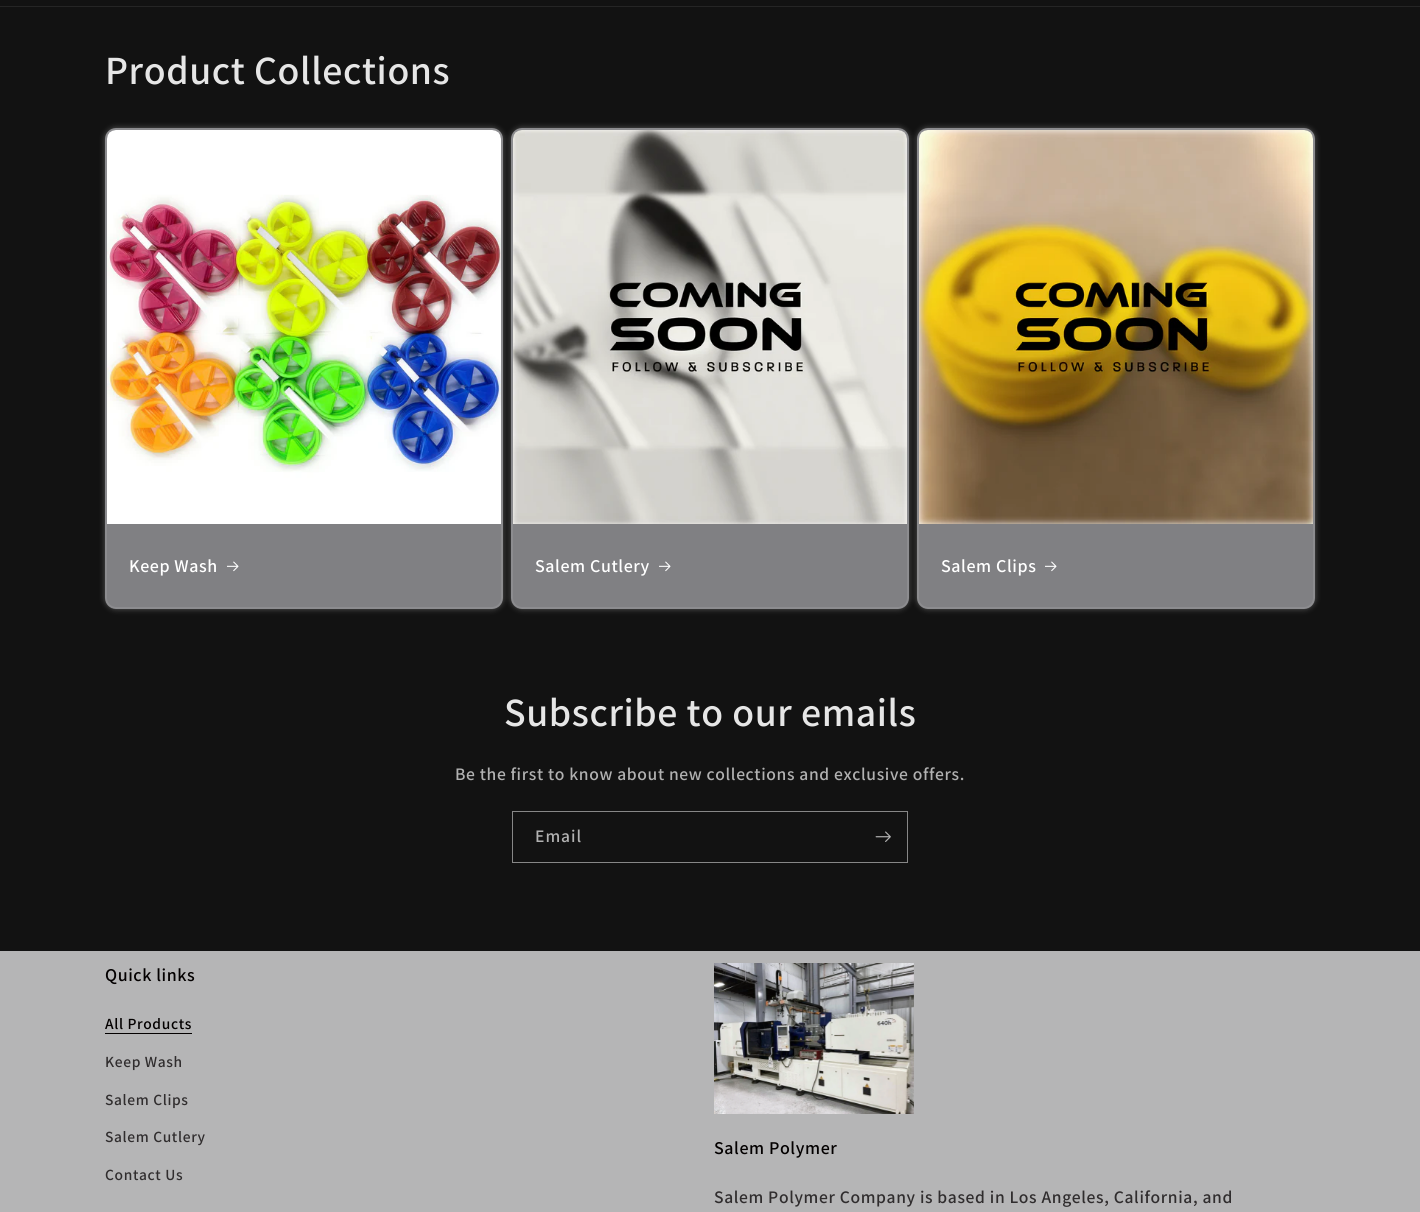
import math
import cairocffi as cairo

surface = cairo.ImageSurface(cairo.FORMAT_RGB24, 1420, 1212)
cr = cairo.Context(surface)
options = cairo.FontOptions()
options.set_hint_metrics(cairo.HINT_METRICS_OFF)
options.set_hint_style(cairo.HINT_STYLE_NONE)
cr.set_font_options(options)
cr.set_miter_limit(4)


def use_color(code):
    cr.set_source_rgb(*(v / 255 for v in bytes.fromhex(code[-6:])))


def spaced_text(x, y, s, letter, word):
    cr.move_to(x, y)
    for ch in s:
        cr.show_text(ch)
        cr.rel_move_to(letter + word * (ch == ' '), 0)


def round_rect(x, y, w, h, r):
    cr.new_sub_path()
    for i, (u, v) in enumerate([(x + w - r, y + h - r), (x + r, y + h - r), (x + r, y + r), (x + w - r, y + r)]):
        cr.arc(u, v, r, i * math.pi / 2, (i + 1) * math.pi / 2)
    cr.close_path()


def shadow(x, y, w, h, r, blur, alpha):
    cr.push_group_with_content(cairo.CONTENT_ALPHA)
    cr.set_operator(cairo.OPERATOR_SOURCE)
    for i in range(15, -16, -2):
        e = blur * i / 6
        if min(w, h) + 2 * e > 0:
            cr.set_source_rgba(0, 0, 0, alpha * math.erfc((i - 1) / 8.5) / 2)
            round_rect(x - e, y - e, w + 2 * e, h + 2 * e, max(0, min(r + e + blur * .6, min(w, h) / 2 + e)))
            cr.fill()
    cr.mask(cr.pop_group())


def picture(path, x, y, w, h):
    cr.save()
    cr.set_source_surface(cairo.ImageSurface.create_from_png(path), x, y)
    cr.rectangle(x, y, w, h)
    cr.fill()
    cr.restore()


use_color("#121212")
cr.paint()
use_color("#252525")
cr.rectangle(0, 6, 1420, 1)
cr.fill()
cr.select_font_face("Assistant SemiBold")
cr.set_font_size(40)
use_color("#e6e6e6")
spaced_text(105, 84, "Product Collections", 0.6, 0)
use_color("#808083")
round_rect(105, 128, 398, 481, 11)
cr.fill()
round_rect(106, 129, 396, 479, 10)
cr.set_source_rgba(1, 1, 1, 0.1)
cr.stroke()
cr.save()
cr.set_fill_rule(cairo.FILL_RULE_EVEN_ODD)
cr.new_path()
cr.move_to(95, 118)
cr.line_to(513, 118)
cr.line_to(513, 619)
cr.line_to(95, 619)
cr.close_path()
cr.move_to(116, 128)
cr.line_to(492, 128)
cr.curve_to(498, 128, 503, 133, 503, 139)
cr.line_to(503, 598)
cr.curve_to(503, 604, 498, 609, 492, 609)
cr.line_to(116, 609)
cr.curve_to(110, 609, 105, 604, 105, 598)
cr.line_to(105, 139)
cr.curve_to(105, 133, 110, 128, 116, 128)
cr.close_path()
cr.clip()
use_color("#ffffff")
shadow(105, 128, 398, 481, 11, 3, 0.3)
cr.restore()
picture("img1.png", 107, 130, 394, 394)
cr.set_font_size(18)
use_color("#ffffff")
spaced_text(129, 572, "Keep Wash", 0.6, 0)
picture("img2.png", 227, 561, 12, 11)
use_color("#808083")
round_rect(511, 128, 398, 481, 11)
cr.fill()
round_rect(512, 129, 396, 479, 10)
cr.set_source_rgba(1, 1, 1, 0.1)
cr.stroke()
cr.save()
cr.set_fill_rule(cairo.FILL_RULE_EVEN_ODD)
cr.new_path()
cr.move_to(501, 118)
cr.line_to(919, 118)
cr.line_to(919, 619)
cr.line_to(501, 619)
cr.close_path()
cr.move_to(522, 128)
cr.line_to(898, 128)
cr.curve_to(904, 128, 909, 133, 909, 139)
cr.line_to(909, 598)
cr.curve_to(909, 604, 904, 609, 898, 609)
cr.line_to(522, 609)
cr.curve_to(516, 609, 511, 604, 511, 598)
cr.line_to(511, 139)
cr.curve_to(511, 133, 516, 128, 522, 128)
cr.close_path()
cr.clip()
use_color("#ffffff")
shadow(511, 128, 398, 481, 11, 3, 0.3)
cr.restore()
picture("img3.png", 513, 130, 394, 394)
use_color("#ffffff")
spaced_text(535, 572, "Salem Cutlery", 0.6, 0)
picture("img2.png", 659, 561, 12, 11)
use_color("#808083")
round_rect(917, 128, 398, 481, 11)
cr.fill()
round_rect(918, 129, 396, 479, 10)
cr.set_source_rgba(1, 1, 1, 0.1)
cr.stroke()
cr.save()
cr.set_fill_rule(cairo.FILL_RULE_EVEN_ODD)
cr.new_path()
cr.move_to(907, 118)
cr.line_to(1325, 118)
cr.line_to(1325, 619)
cr.line_to(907, 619)
cr.close_path()
cr.move_to(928, 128)
cr.line_to(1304, 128)
cr.curve_to(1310, 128, 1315, 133, 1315, 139)
cr.line_to(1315, 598)
cr.curve_to(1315, 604, 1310, 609, 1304, 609)
cr.line_to(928, 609)
cr.curve_to(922, 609, 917, 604, 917, 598)
cr.line_to(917, 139)
cr.curve_to(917, 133, 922, 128, 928, 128)
cr.close_path()
cr.clip()
use_color("#ffffff")
shadow(917, 128, 398, 481, 11, 3, 0.3)
cr.restore()
picture("img4.png", 919, 130, 394, 394)
use_color("#ffffff")
spaced_text(941, 572, "Salem Clips", 0.6, 0)
picture("img2.png", 1045, 561, 12, 11)
cr.set_font_size(40)
use_color("#e6e6e6")
spaced_text(504, 726, "Subscribe to our emails", 0.6, 0)
cr.set_font_size(17.6)
use_color("#b1b1b1")
spaced_text(455, 780, "Be the first to know about new collections and exclusive offers.", 0.65, 0)
cr.rectangle(512.5, 811.5, 395, 51)
use_color("#878787")
cr.set_line_width(1)
cr.stroke()
use_color("#b1b1b1")
spaced_text(535, 842, "Email", 1, 0)
picture("img5.png", 875, 831, 16, 11)
use_color("#b5b5b6")
cr.rectangle(0, 951, 1420, 261)
cr.fill()
cr.set_font_size(18)
use_color("#030000")
spaced_text(105, 981, "Quick links", 0.6, 0)
cr.set_font_size(15.5)
spaced_text(105, 1029, "All Products", 0.65, 0)
cr.rectangle(105, 1033, 87, 1)
cr.fill()
use_color("#302d2e")
spaced_text(105, 1067, "Keep Wash", 0.65, 0)
spaced_text(105, 1105, "Salem Clips", 0.65, 0)
spaced_text(105, 1142, "Salem Cutlery", 0.65, 0)
spaced_text(105, 1180, "Contact Us", 0.65, 0)
picture("img6.png", 714, 963, 200, 151)
cr.set_font_size(18)
use_color("#030000")
spaced_text(714, 1154, "Salem Polymer", 0.6, 0)
cr.set_font_size(17.6)
use_color("#302d2e")
spaced_text(714, 1203, "Salem Polymer Company is based in Los Angeles, California, and", 0.65, 0)
surface.write_to_png("result.png")
